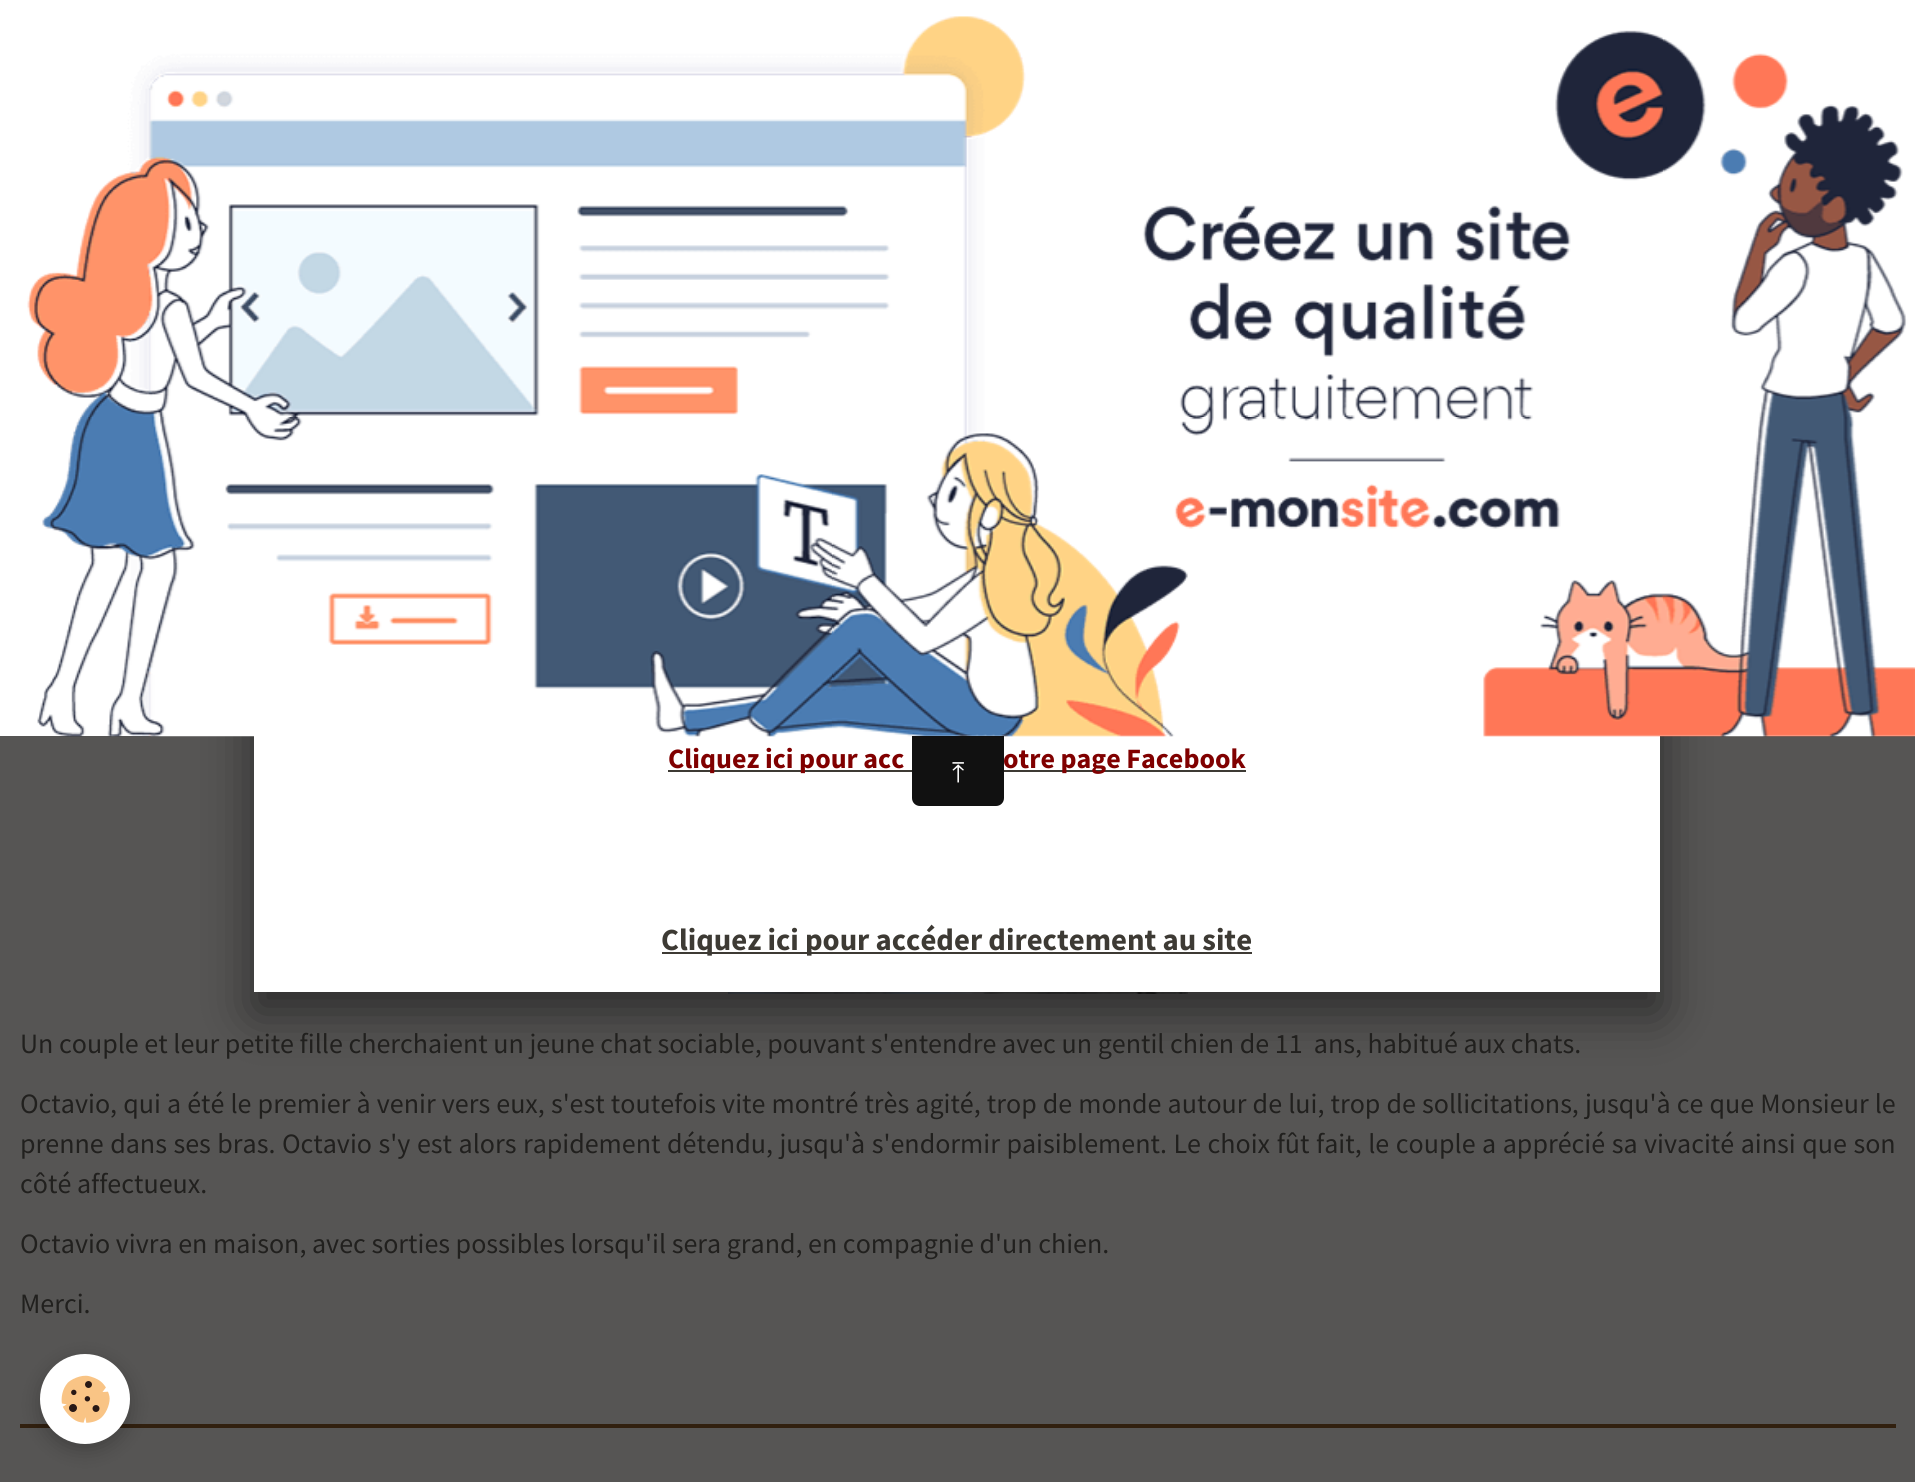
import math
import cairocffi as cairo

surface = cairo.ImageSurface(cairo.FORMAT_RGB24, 1915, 1482)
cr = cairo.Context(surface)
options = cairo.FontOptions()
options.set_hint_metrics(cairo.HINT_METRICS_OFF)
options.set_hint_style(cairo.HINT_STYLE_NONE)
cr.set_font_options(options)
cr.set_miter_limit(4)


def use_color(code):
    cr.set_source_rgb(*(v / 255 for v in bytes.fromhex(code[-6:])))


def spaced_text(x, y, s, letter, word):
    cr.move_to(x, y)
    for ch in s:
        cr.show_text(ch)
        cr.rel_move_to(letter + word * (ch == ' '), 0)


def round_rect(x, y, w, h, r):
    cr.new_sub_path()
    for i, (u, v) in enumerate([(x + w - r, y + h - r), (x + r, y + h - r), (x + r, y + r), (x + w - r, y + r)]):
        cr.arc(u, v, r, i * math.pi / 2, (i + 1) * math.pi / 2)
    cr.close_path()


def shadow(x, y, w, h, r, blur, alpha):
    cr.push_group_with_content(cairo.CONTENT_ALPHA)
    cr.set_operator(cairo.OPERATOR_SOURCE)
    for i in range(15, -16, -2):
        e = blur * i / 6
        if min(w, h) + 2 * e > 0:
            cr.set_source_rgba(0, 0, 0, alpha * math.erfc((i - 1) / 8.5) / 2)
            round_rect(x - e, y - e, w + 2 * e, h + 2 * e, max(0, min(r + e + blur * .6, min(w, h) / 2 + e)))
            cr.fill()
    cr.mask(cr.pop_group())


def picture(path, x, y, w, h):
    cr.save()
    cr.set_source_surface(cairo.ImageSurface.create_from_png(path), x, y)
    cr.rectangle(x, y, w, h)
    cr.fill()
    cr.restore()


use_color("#565554")
cr.paint()
picture("img2.png", 728, 992, 460, 2)
use_color("#000000")
shadow(254, 508, 1406, 504, 0, 25, 0.5)
use_color("#ffffff")
cr.rectangle(254, 736, 1406, 256)
cr.fill()
use_color("#3d3a34")
cr.rectangle(668, 770, 578, 2)
cr.fill()
cr.select_font_face("Source Sans Pro", cairo.FONT_SLANT_NORMAL, cairo.FONT_WEIGHT_BOLD)
cr.set_font_size(28)
use_color("#800000")
cr.move_to(668, 768)
cr.show_text("Cliquez ici pour acc")
cr.move_to(1003, 768)
cr.show_text("otre page Facebook")
use_color("#3d3a34")
cr.rectangle(662, 952, 590, 2)
cr.fill()
cr.set_font_size(30.75)
cr.move_to(661, 950)
cr.show_text("Cliquez ici pour accéder directement au site")
use_color("#ffffff")
cr.rectangle(0, 0, 1915, 736)
cr.fill()
picture("img1.png", 27, 16, 1888, 721)
use_color("#111111")
cr.new_path()
cr.move_to(912, 736)
cr.line_to(1004, 736)
cr.line_to(1004, 798)
cr.curve_to(1004, 802.5, 1000.5, 806, 996, 806)
cr.line_to(920, 806)
cr.curve_to(915.5, 806, 912, 802.5, 912, 798)
cr.close_path()
cr.fill()
cr.select_font_face("FreeSerif")
cr.set_font_size(28)
use_color("#ffffff")
cr.move_to(952, 782)
cr.show_text("⤒")
cr.select_font_face("Source Sans Pro")
use_color("#21201e")
cr.move_to(20, 1053)
cr.show_text("Un couple et leur petite fille cherchaient un jeune chat sociable, pouvant s'entendre avec un gentil chien de 11  ans, habitué aux chats.")
spaced_text(20, 1113, "Octavio, qui a été le premier à venir vers eux, s'est toutefois vite montré très agité, trop de monde autour de lui, trop de sollicitations, jusqu'à ce que Monsieur le", 0, 0.5)
spaced_text(20, 1153, "prenne dans ses bras. Octavio s'y est alors rapidement détendu, jusqu'à s'endormir paisiblement. Le choix fût fait, le couple a apprécié sa vivacité ainsi que son", 0, 0.95)
cr.move_to(20, 1193)
cr.show_text("côté affectueux.")
cr.move_to(20, 1253)
cr.show_text("Octavio vivra en maison, avec sorties possibles lorsqu'il sera grand, en compagnie d'un chien.")
cr.move_to(20, 1313)
cr.show_text("Merci.")
use_color("#31200f")
cr.rectangle(20, 1424, 1876, 4)
cr.fill()
use_color("#000000")
shadow(40, 1360, 90, 90, 45, 10, 0.24)
use_color("#ffffff")
cr.arc(85, 1399, 45, 0, 2 * math.pi)
cr.fill()
picture("img3.png", 61, 1375, 49, 48)
surface.write_to_png("result.png")
